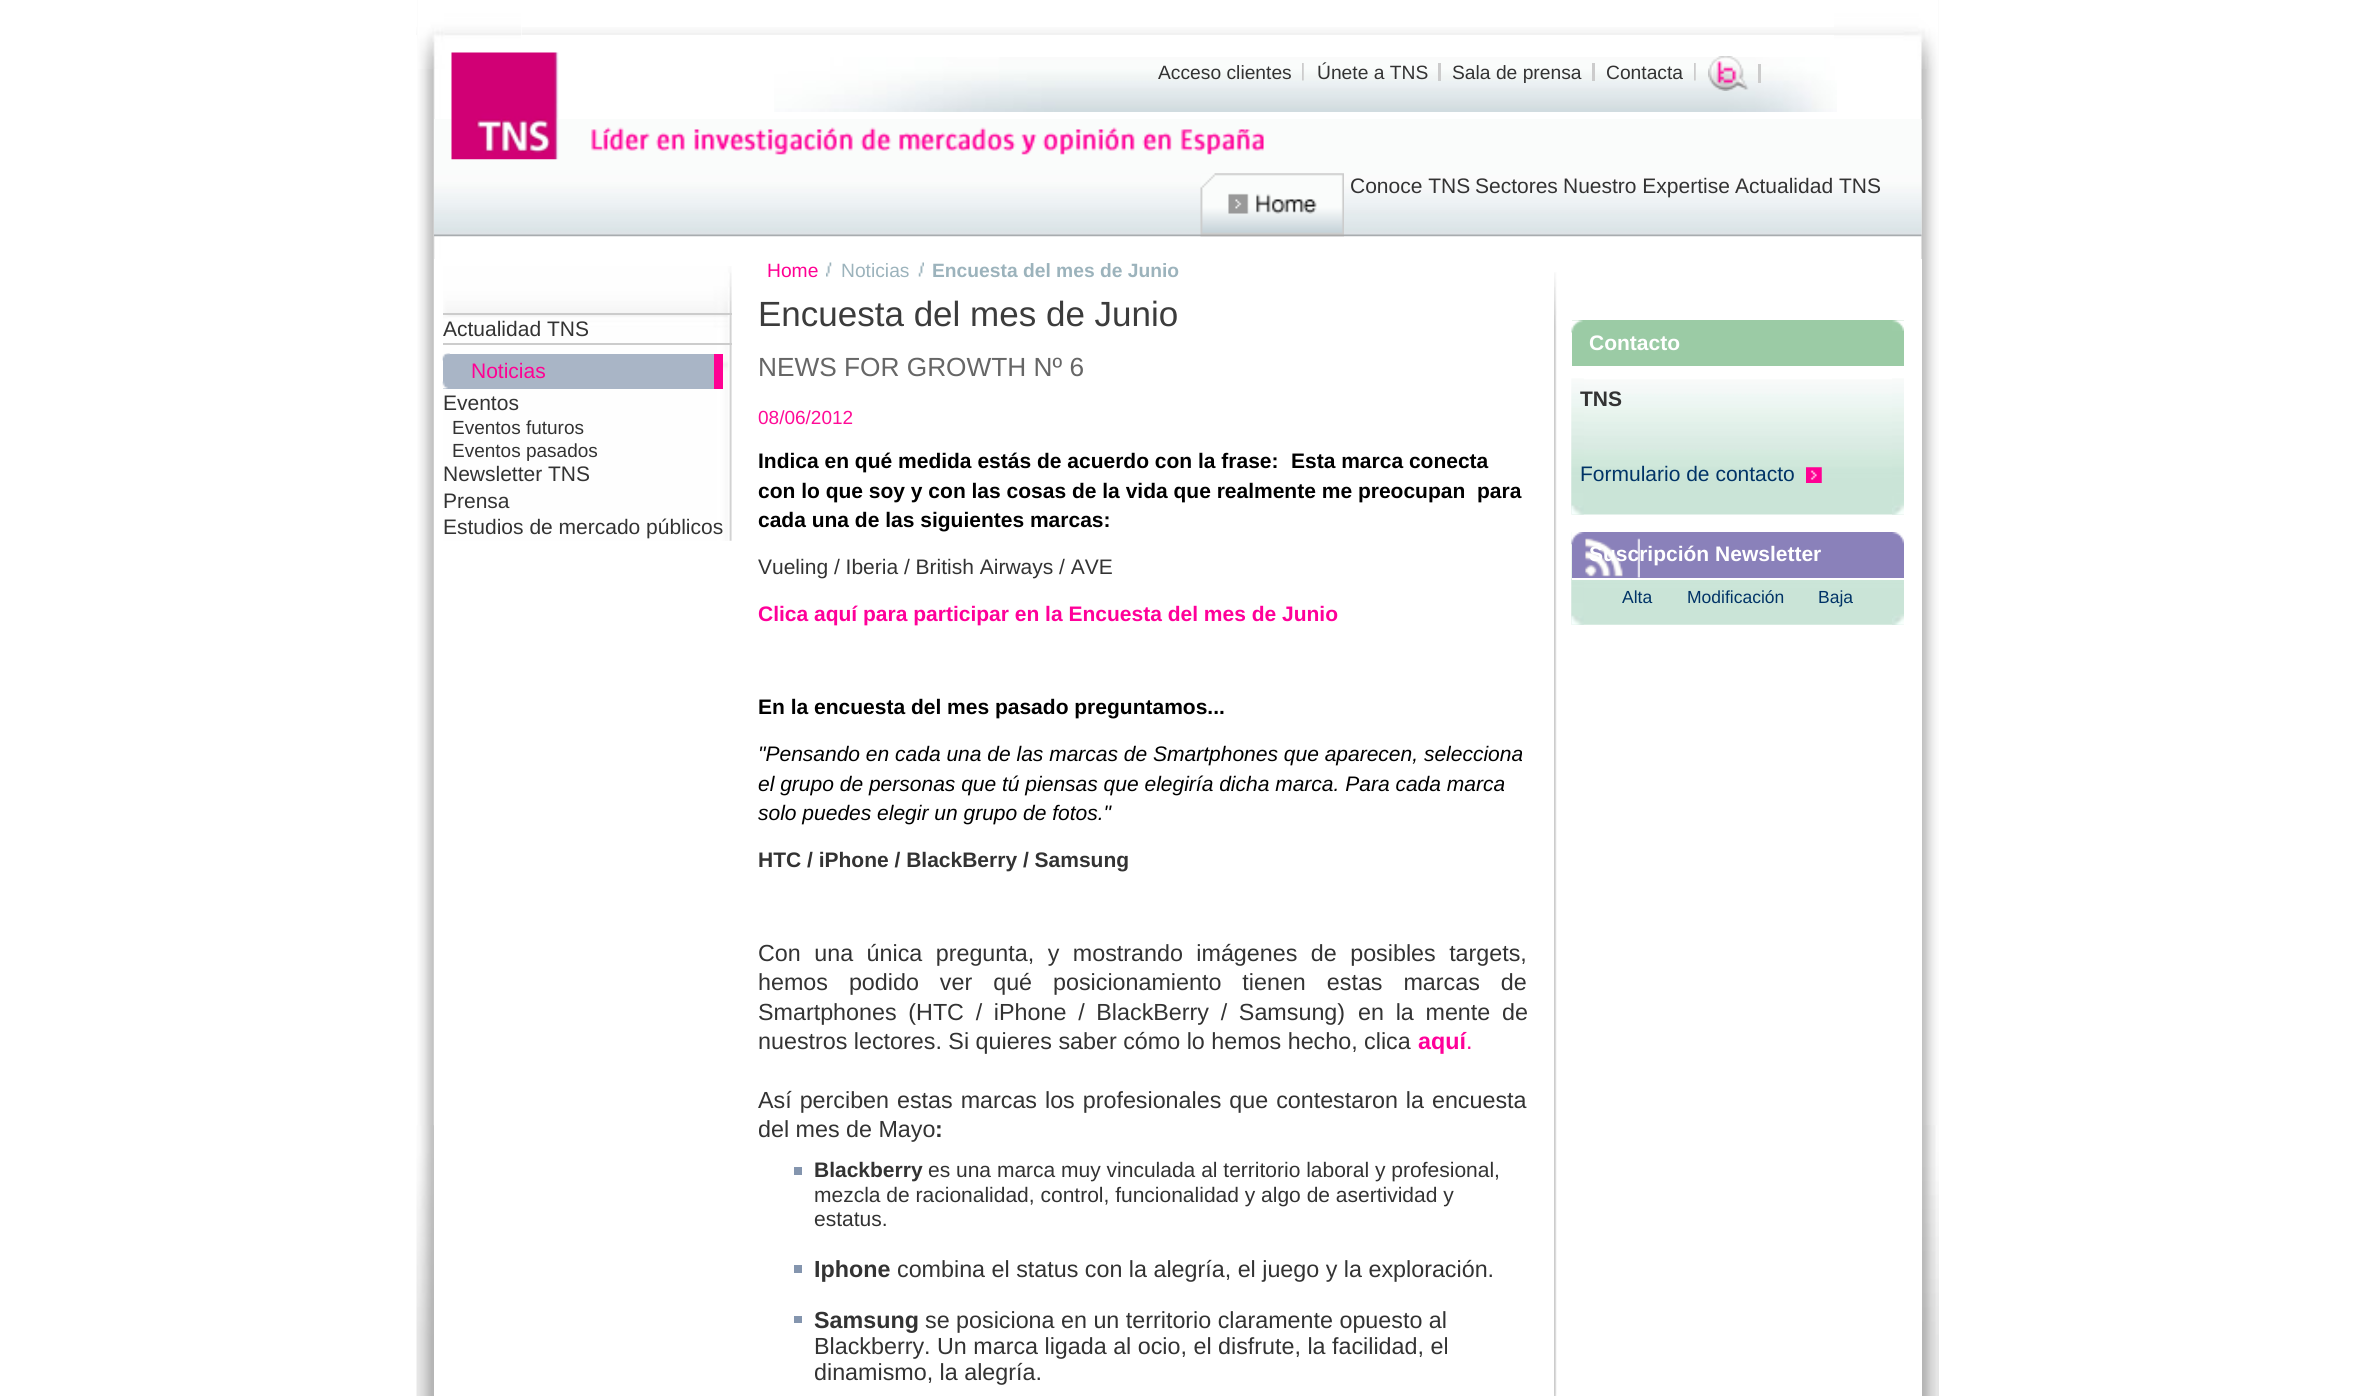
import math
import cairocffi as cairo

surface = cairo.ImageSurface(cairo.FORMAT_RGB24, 2355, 1396)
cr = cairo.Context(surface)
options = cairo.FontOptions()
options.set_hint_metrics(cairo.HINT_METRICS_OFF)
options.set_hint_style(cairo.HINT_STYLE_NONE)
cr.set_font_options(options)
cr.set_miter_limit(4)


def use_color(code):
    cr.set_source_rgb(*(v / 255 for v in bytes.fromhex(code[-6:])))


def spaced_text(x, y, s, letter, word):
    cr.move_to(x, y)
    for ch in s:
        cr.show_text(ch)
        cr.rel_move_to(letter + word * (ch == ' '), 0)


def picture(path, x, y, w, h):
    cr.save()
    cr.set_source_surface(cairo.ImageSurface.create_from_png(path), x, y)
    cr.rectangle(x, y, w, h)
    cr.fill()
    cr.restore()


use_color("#ffffff")
cr.paint()
picture("img1.png", 416, 27, 1418, 8)
picture("img2.png", 1834, 0, 105, 1126)
picture("img3.png", 417, 0, 105, 1126)
picture("img4.png", 418, 0, 103, 69)
picture("img5.png", 1834, 0, 104, 69)
picture("img6.png", 416, 1125, 18, 271)
picture("img7.png", 1922, 1125, 17, 271)
picture("img8.png", 434, 119, 1488, 118)
picture("img9.png", 451, 52, 108, 108)
picture("img10.png", 774, 57, 1063, 55)
picture("img11.png", 1302, 63, 2, 18)
cr.select_font_face("Liberation Sans")
cr.set_font_size(19.25)
use_color("#333333")
cr.move_to(1158, 79)
cr.show_text("Acceso clientes")
use_color("#cccccc")
cr.rectangle(1438, 63, 3, 18)
cr.fill()
use_color("#333333")
cr.move_to(1317, 79)
cr.show_text("Únete a TNS")
use_color("#cccccc")
cr.rectangle(1592, 63, 3, 18)
cr.fill()
use_color("#333333")
cr.move_to(1452, 79)
cr.show_text("Sala de prensa")
picture("img11.png", 1694, 63, 2, 18)
cr.move_to(1606, 79)
cr.show_text("Contacta")
use_color("#cccccc")
cr.rectangle(1758, 64, 3, 19)
cr.fill()
picture("img12.png", 1708, 56, 41, 35)
picture("img13.png", 591, 127, 673, 28)
picture("img14.png", 1200, 173, 144, 64)
cr.set_font_size(21)
use_color("#333333")
cr.move_to(1350, 193)
cr.show_text("Conoce TNS")
cr.move_to(1475, 193)
cr.show_text("Sectores")
cr.move_to(1563, 193)
cr.show_text("Nuestro Expertise")
cr.move_to(1735, 193)
cr.show_text("Actualidad TNS")
use_color("#ffffff")
cr.rectangle(434, 259, 1488, 867)
cr.fill()
picture("img15.png", 443, 266, 289, 275)
use_color("#cccccc")
cr.rectangle(443, 313, 289, 2)
cr.fill()
cr.rectangle(443, 343, 289, 2)
cr.fill()
use_color("#333333")
cr.move_to(443, 336)
cr.show_text("Actualidad TNS")
use_color("#a9b5c6")
cr.rectangle(443, 354, 271, 35)
cr.fill()
use_color("#ff0093")
cr.rectangle(714, 354, 9, 35)
cr.fill()
picture("img16.png", 442, 353, 8, 8)
cr.move_to(471, 378)
cr.show_text("Noticias")
picture("img17.png", 442, 381, 6, 8)
use_color("#333333")
cr.move_to(443, 410)
cr.show_text("Eventos")
cr.set_font_size(19)
cr.move_to(452, 434)
cr.show_text("Eventos futuros")
cr.move_to(452, 457)
cr.show_text("Eventos pasados")
cr.set_font_size(21)
cr.move_to(443, 481)
cr.show_text("Newsletter TNS")
cr.move_to(443, 508)
cr.show_text("Prensa")
cr.move_to(443, 534)
cr.show_text("Estudios de mercado públicos")
cr.set_font_size(19.25)
use_color("#ff0093")
cr.move_to(767, 277)
cr.show_text("Home")
picture("img18.png", 826, 262, 6, 15)
use_color("#9cb3bc")
cr.move_to(841, 277)
cr.show_text("Noticias")
picture("img19.png", 918, 262, 6, 15)
cr.select_font_face("Liberation Sans", cairo.FONT_SLANT_NORMAL, cairo.FONT_WEIGHT_BOLD)
cr.move_to(932, 277)
cr.show_text("Encuesta del mes de Junio")
cr.select_font_face("Liberation Sans")
cr.set_font_size(35)
use_color("#3c3c3c")
cr.move_to(758, 326)
cr.show_text("Encuesta del mes de Junio")
cr.set_font_size(26.25)
use_color("#666666")
cr.move_to(758, 376)
cr.show_text("NEWS FOR GROWTH Nº 6")
cr.set_font_size(19)
use_color("#ff0b97")
cr.move_to(758, 424)
cr.show_text("08/06/2012")
cr.select_font_face("Liberation Sans", cairo.FONT_SLANT_NORMAL, cairo.FONT_WEIGHT_BOLD)
cr.set_font_size(21)
use_color("#000000")
cr.move_to(758, 468)
cr.show_text("Indica en qué medida estás de acuerdo con la frase:")
cr.move_to(1291, 468)
cr.show_text("Esta marca conecta")
cr.move_to(758, 498)
cr.show_text("con lo que soy y con las cosas de la vida que realmente me preocupan")
cr.move_to(1477, 498)
cr.show_text("para")
cr.move_to(758, 527)
cr.show_text("cada una de las siguientes marcas:")
cr.select_font_face("Liberation Sans")
use_color("#333333")
cr.move_to(758, 574)
cr.show_text("Vueling / Iberia / British Airways / AVE")
cr.select_font_face("Liberation Sans", cairo.FONT_SLANT_NORMAL, cairo.FONT_WEIGHT_BOLD)
use_color("#ff0099")
cr.move_to(758, 621)
cr.show_text("Clica aquí para participar en la Encuesta del mes de Junio")
use_color("#000000")
cr.move_to(758, 714)
cr.show_text("En la encuesta del mes pasado preguntamos...")
cr.select_font_face("Liberation Sans", cairo.FONT_SLANT_ITALIC)
cr.move_to(758, 761)
cr.show_text("\"Pensando en cada una de las marcas de Smartphones que aparecen, selecciona")
cr.move_to(758, 791)
cr.show_text("el grupo de personas que tú piensas que elegiría dicha marca. Para cada marca")
cr.move_to(758, 820)
cr.show_text("solo puedes elegir un grupo de fotos.\"")
cr.select_font_face("Liberation Sans", cairo.FONT_SLANT_NORMAL, cairo.FONT_WEIGHT_BOLD)
use_color("#333333")
cr.move_to(758, 867)
cr.show_text("HTC / iPhone / BlackBerry / Samsung")
cr.select_font_face("Liberation Sans")
cr.set_font_size(23.3)
spaced_text(758, 961, "Con una única pregunta, y mostrando imágenes de posibles targets,", 0, 7)
spaced_text(758, 990, "hemos podido ver qué posicionamiento tienen estas marcas de", 0, 14.5)
spaced_text(758, 1020, "Smartphones (HTC / iPhone / BlackBerry / Samsung)", 0, 5.25)
spaced_text(1358, 1020, "en la mente de", 0, 5.25)
cr.move_to(758, 1049)
cr.show_text("nuestros lectores. Si quieres saber cómo lo hemos hecho, clica")
cr.select_font_face("Liberation Sans", cairo.FONT_SLANT_NORMAL, cairo.FONT_WEIGHT_BOLD)
use_color("#ff0099")
cr.move_to(1418, 1049)
cr.show_text("aquí")
cr.select_font_face("Liberation Sans")
cr.move_to(1466, 1049)
cr.show_text(".")
use_color("#333333")
spaced_text(758, 1108, "Así perciben estas marcas los profesionales que contestaron la encuesta", 0, 1.5)
cr.move_to(758, 1137)
cr.show_text("del mes de Mayo")
cr.select_font_face("Liberation Sans", cairo.FONT_SLANT_NORMAL, cairo.FONT_WEIGHT_BOLD)
cr.move_to(935, 1137)
cr.show_text(":")
use_color("#8495ae")
cr.rectangle(794, 1167, 8, 8)
cr.fill()
cr.set_font_size(21)
use_color("#333333")
cr.move_to(814, 1177)
cr.show_text("Blackberry")
cr.select_font_face("Liberation Sans")
cr.move_to(928, 1177)
cr.show_text("es una marca muy vinculada al territorio laboral y profesional,")
cr.move_to(814, 1202)
cr.show_text("mezcla de racionalidad, control, funcionalidad y algo de asertividad y")
cr.move_to(814, 1226)
cr.show_text("estatus.")
use_color("#8495ae")
cr.rectangle(794, 1265, 8, 8)
cr.fill()
cr.select_font_face("Liberation Sans", cairo.FONT_SLANT_NORMAL, cairo.FONT_WEIGHT_BOLD)
cr.set_font_size(23.3)
use_color("#333333")
cr.move_to(814, 1277)
cr.show_text("Iphone")
cr.select_font_face("Liberation Sans")
cr.move_to(897, 1277)
cr.show_text("combina el status con la alegría, el juego y la exploración.")
use_color("#8495ae")
cr.rectangle(794, 1316, 8, 7)
cr.fill()
cr.select_font_face("Liberation Sans", cairo.FONT_SLANT_NORMAL, cairo.FONT_WEIGHT_BOLD)
use_color("#333333")
cr.move_to(814, 1328)
cr.show_text("Samsung")
cr.select_font_face("Liberation Sans")
cr.move_to(925, 1328)
cr.show_text("se posiciona en un territorio claramente opuesto al")
cr.move_to(814, 1354)
cr.show_text("Blackberry. Un marca ligada al ocio, el disfrute, la facilidad, el")
cr.move_to(814, 1380)
cr.show_text("dinamismo, la alegría.")
picture("img20.png", 1554, 272, 3, 1124)
picture("img21.png", 1571, 379, 333, 136)
use_color("#9bcba5")
cr.rectangle(1572, 320, 332, 46)
cr.fill()
picture("img22.png", 1571, 320, 12, 13)
picture("img23.png", 1892, 320, 12, 11)
cr.select_font_face("Liberation Sans", cairo.FONT_SLANT_NORMAL, cairo.FONT_WEIGHT_BOLD)
cr.set_font_size(21)
use_color("#ffffff")
cr.move_to(1589, 350)
cr.show_text("Contacto")
picture("img24.png", 1571, 378, 13, 137)
picture("img25.png", 1892, 378, 12, 137)
use_color("#333333")
cr.move_to(1580, 406)
cr.show_text("TNS")
cr.select_font_face("Liberation Sans")
use_color("#003366")
cr.move_to(1580, 481)
cr.show_text("Formulario de contacto")
picture("img26.png", 1806, 467, 16, 16)
picture("img27.png", 1571, 532, 333, 93)
use_color("#8a81ba")
cr.rectangle(1572, 532, 332, 46)
cr.fill()
picture("img28.png", 1585, 538, 55, 40)
picture("img31.png", 1571, 579, 13, 46)
use_color("#ffffff")
cr.rectangle(1572, 578, 332, 2)
cr.fill()
picture("img29.png", 1571, 532, 13, 13)
picture("img30.png", 1892, 532, 12, 12)
cr.select_font_face("Liberation Sans", cairo.FONT_SLANT_NORMAL, cairo.FONT_WEIGHT_BOLD)
cr.move_to(1589, 561)
cr.show_text("Suscripción Newsletter")
picture("img32.png", 1892, 614, 12, 11)
cr.select_font_face("Liberation Sans")
cr.set_font_size(17.5)
use_color("#003366")
cr.move_to(1622, 603)
cr.show_text("Alta")
cr.move_to(1687, 603)
cr.show_text("Modificación")
cr.move_to(1818, 603)
cr.show_text("Baja")
surface.write_to_png("result.png")
